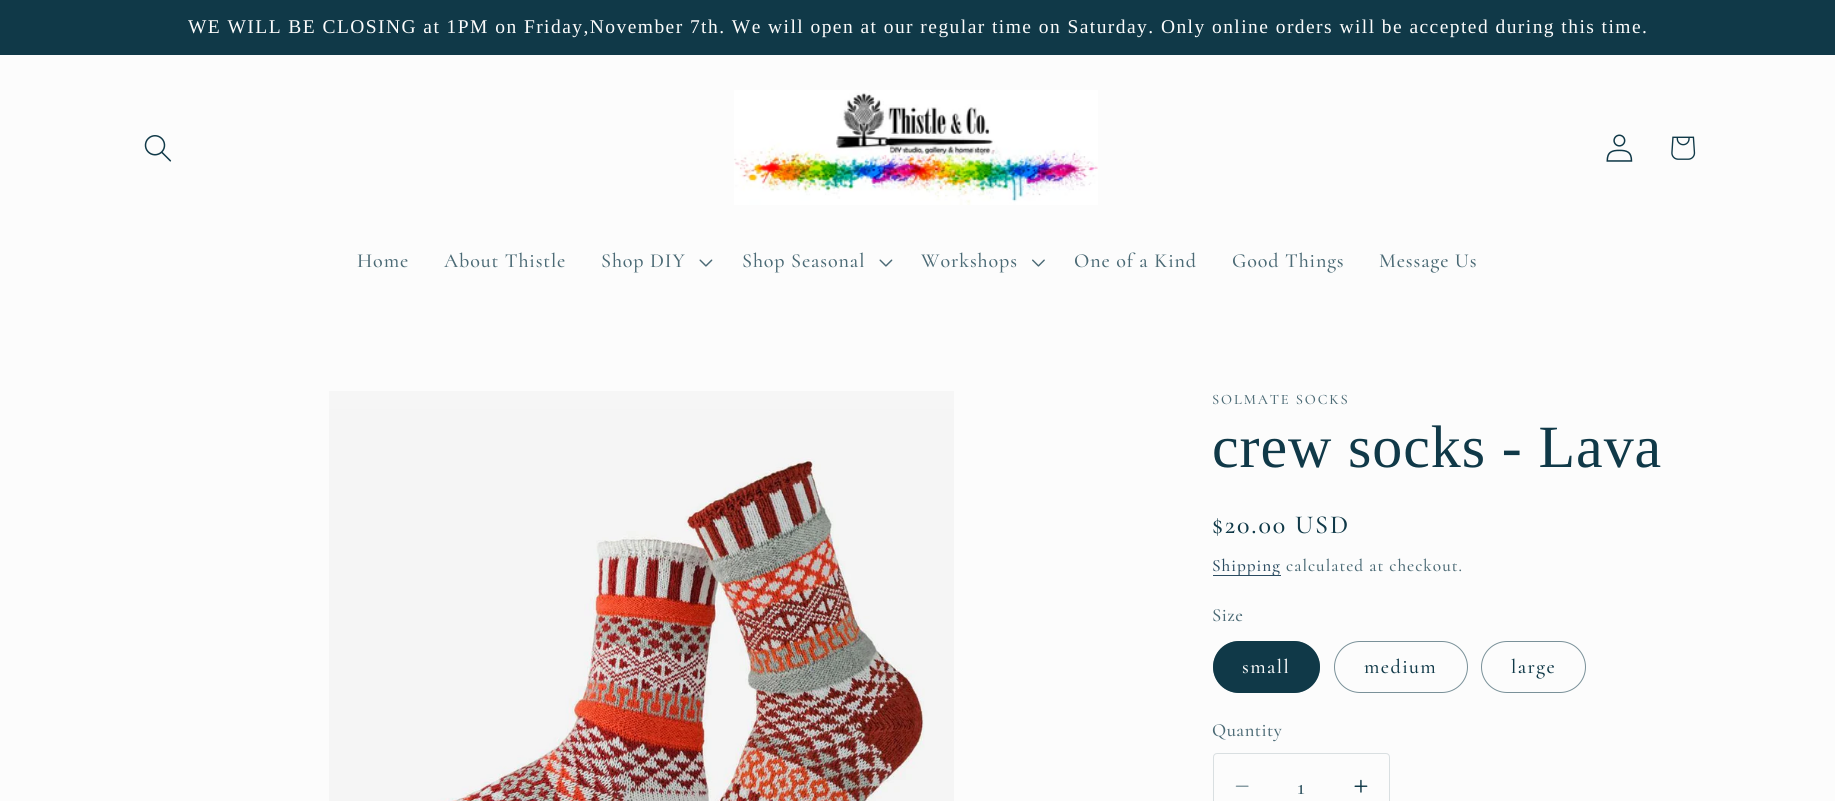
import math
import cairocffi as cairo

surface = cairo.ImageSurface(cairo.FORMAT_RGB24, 1835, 801)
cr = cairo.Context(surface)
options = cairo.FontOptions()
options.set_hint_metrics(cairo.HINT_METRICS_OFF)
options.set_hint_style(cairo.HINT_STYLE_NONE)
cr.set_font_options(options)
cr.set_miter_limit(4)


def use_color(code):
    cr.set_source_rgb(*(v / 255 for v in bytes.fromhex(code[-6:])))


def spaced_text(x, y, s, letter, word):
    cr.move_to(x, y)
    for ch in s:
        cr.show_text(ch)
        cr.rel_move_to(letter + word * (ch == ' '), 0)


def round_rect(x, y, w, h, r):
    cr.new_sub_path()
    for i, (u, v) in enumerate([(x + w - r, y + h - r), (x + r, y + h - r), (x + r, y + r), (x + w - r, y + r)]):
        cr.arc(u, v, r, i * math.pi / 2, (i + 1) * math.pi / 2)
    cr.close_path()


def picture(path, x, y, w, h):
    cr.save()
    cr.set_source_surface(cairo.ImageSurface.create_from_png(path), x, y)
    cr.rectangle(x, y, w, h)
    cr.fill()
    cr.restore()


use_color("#fcfcfc")
cr.paint()
use_color("#103948")
cr.rectangle(0, 0, 1835, 55)
cr.fill()
cr.select_font_face("Liberation Serif")
cr.set_font_size(19.5)
use_color("#fcfcfc")
spaced_text(188, 33, "WE WILL BE CLOSING at 1PM on Friday,November 7th. We will open at our regular time on Saturday. Only online orders will be accepted during this time.", 1.44, 0)
picture("img1.png", 144, 135, 28, 27)
picture("img2.png", 734, 90, 364, 115)
picture("img3.png", 1606, 134, 27, 28)
picture("img4.png", 1671, 136, 25, 24)
cr.select_font_face("Cormorant Medium")
cr.set_font_size(20)
use_color("#4b6a75")
spaced_text(357, 267, "Home", 0.9, 0)
spaced_text(444, 267, "About Thistle", 0.9, 0)
spaced_text(601, 267, "Shop DIY", 0.9, 0)
picture("img5.png", 699, 259, 14, 8)
spaced_text(742, 267, "Shop Seasonal", 0.9, 0)
picture("img5.png", 879, 259, 14, 8)
spaced_text(921, 267, "Workshops", 0.9, 0)
picture("img6.png", 1032, 259, 13, 8)
spaced_text(1074, 267, "One of a Kind", 0.9, 0)
spaced_text(1232, 267, "Good Things", 0.9, 0)
spaced_text(1379, 267, "Message Us", 0.9, 0)
picture("img7.png", 329, 391, 625, 410)
cr.set_font_size(14.4)
spaced_text(1212, 404, "SOLMATE SOCKS", 1.9, 0)
cr.select_font_face("Liberation Serif")
cr.set_font_size(60)
use_color("#103948")
spaced_text(1212, 467, "crew socks - Lava", 0.9, 0)
cr.select_font_face("Cormorant Medium")
cr.set_font_size(26)
spaced_text(1212, 533, "$20.00 USD", 1.9, 0)
use_color("#2a4b61")
cr.rectangle(1213, 575, 68, 1)
cr.fill()
cr.set_font_size(17.25)
use_color("#294a60")
spaced_text(1212, 571, "Shipping", 1, 0)
use_color("#4b6a75")
spaced_text(1286, 571, "calculated at checkout.", 1, 0)
cr.set_font_size(18.5)
spaced_text(1212, 621, "Size", 0.5, 0)
use_color("#103948")
round_rect(1213, 641, 107, 52, 26)
cr.fill()
round_rect(1213.5, 641.5, 106, 51, 25.5)
cr.set_source_rgba(0.063, 0.224, 0.282, 0.55)
cr.set_line_width(1)
cr.stroke()
cr.set_font_size(20)
use_color("#fcfcfc")
spaced_text(1242, 673, "small", 1.44, 0)
round_rect(1334.5, 641.5, 133, 51, 25.5)
use_color("#7a9199")
cr.stroke()
use_color("#103948")
spaced_text(1364, 673, "medium", 1.44, 0)
round_rect(1481.5, 641.5, 104, 51, 25.5)
use_color("#7a9199")
cr.stroke()
use_color("#103948")
spaced_text(1511, 673, "large", 1.44, 0)
cr.set_font_size(18.5)
use_color("#4b6a75")
spaced_text(1212, 736, "Quantity", 0.5, 0)
picture("img8.png", 1235, 785, 14, 2)
picture("img9.png", 1354, 779, 14, 14)
round_rect(1213.5, 753.5, 176, 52, 3.5)
use_color("#d9dfe1")
cr.stroke()
cr.set_font_size(23)
use_color("#335663")
cr.move_to(1297, 794)
cr.show_text("1")
surface.write_to_png("result.png")
